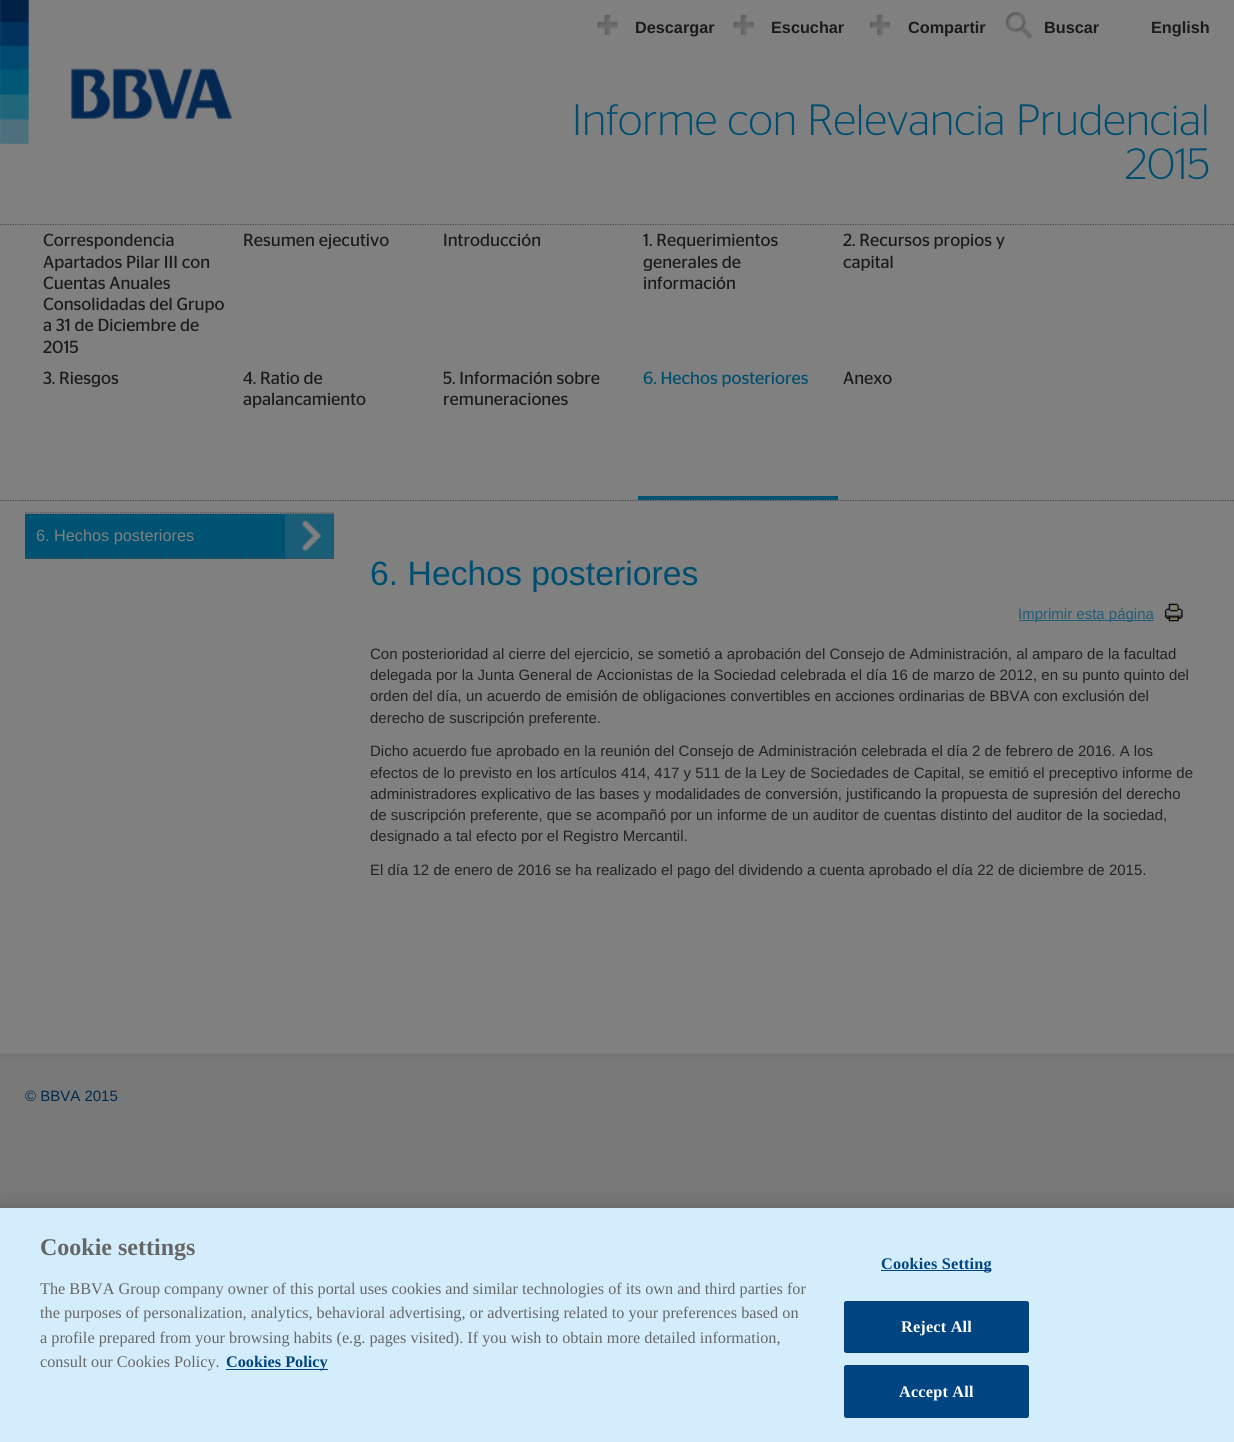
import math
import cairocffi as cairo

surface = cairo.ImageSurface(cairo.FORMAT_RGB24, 1234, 1442)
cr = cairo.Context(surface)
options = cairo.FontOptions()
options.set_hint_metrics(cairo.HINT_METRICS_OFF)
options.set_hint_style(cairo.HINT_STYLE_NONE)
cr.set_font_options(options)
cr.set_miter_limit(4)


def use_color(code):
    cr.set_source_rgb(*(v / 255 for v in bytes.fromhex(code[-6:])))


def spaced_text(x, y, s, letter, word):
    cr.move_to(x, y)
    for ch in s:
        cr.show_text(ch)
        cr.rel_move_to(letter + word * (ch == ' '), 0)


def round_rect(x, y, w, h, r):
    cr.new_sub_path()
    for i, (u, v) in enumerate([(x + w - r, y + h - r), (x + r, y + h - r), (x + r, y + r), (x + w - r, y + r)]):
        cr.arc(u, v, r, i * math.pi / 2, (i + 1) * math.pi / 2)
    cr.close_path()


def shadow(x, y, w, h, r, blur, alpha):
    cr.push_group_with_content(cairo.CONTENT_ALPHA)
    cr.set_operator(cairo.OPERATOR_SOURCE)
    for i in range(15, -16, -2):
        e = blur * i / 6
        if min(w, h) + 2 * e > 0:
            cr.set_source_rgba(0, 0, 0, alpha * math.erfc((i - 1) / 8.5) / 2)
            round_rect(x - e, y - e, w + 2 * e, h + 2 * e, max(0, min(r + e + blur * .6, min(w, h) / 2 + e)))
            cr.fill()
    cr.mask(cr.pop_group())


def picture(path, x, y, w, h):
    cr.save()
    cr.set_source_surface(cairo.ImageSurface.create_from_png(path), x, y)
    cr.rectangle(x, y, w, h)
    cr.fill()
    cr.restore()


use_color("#797979")
cr.paint()
use_color("#808080")
cr.rectangle(0, 0, 1234, 1054)
cr.fill()
picture("img1.png", 0, 1053, 1234, 8)
picture("img2.png", 0, 0, 29, 144)
picture("img3.png", 71, 68, 162, 51)
picture("img4.png", 597, 14, 21, 22)
cr.select_font_face("Liberation Sans", cairo.FONT_SLANT_NORMAL, cairo.FONT_WEIGHT_BOLD)
cr.set_font_size(16.25)
use_color("#1a1a1a")
cr.move_to(635, 33)
cr.show_text("Descargar")
picture("img5.png", 733, 15, 21, 21)
cr.move_to(771, 33)
cr.show_text("Escuchar")
picture("img6.png", 870, 15, 21, 21)
cr.move_to(908, 33)
cr.show_text("Compartir")
picture("img7.png", 1006, 12, 27, 27)
cr.move_to(1044, 33)
cr.show_text("Buscar")
cr.move_to(1151, 33)
cr.show_text("English")
cr.select_font_face("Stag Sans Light")
cr.set_font_size(43.75)
use_color("#004e6f")
cr.move_to(572, 135)
cr.show_text("Informe con Relevancia Prudencial")
cr.move_to(1125, 179)
cr.show_text("2015")
cr.new_path()
cr.move_to(0, 224.5)
cr.line_to(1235, 224.5)
use_color("#4d4d4d")
cr.set_line_width(1.2)
cr.set_dash([1.25, 1.25])
cr.stroke()
cr.new_path()
cr.move_to(0, 500.5)
cr.line_to(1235, 500.5)
cr.stroke()
cr.select_font_face("Stag Sans")
cr.set_font_size(17.5)
use_color("#1a1a1a")
cr.move_to(43, 246)
cr.show_text("Correspondencia")
cr.move_to(43, 268)
cr.show_text("Apartados Pilar III con")
cr.move_to(43, 289)
cr.show_text("Cuentas Anuales")
cr.move_to(43, 310)
cr.show_text("Consolidadas del Grupo")
cr.move_to(43, 331)
cr.show_text("a 31 de Diciembre de")
cr.move_to(43, 353)
cr.show_text("2015")
cr.move_to(243, 246)
cr.show_text("Resumen ejecutivo")
cr.move_to(443, 246)
cr.show_text("Introducción")
cr.move_to(643, 246)
cr.show_text("1. Requerimientos")
cr.move_to(643, 268)
cr.show_text("generales de")
cr.move_to(643, 289)
cr.show_text("información")
cr.move_to(843, 246)
cr.show_text("2. Recursos propios y")
cr.move_to(843, 268)
cr.show_text("capital")
use_color("#005272")
cr.rectangle(638, 496, 200, 4)
cr.fill()
use_color("#004e6f")
cr.move_to(643, 384)
cr.show_text("6. Hechos posteriores")
cr.new_path()
cr.move_to(25, 513)
cr.line_to(334, 513)
use_color("#4d4d4d")
cr.stroke()
use_color("#005272")
cr.rectangle(25, 514, 309, 45)
cr.fill()
picture("img8.png", 285, 513, 49, 46)
cr.new_path()
cr.move_to(25, 558)
cr.line_to(334, 558)
use_color("#4d4d4d")
cr.stroke()
cr.select_font_face("Liberation Sans")
cr.set_font_size(16.25)
use_color("#808080")
cr.move_to(36, 541)
cr.show_text("6. Hechos posteriores")
cr.select_font_face("Stag Sans")
cr.set_font_size(17.5)
use_color("#1a1a1a")
cr.move_to(43, 384)
cr.show_text("3. Riesgos")
cr.move_to(243, 384)
cr.show_text("4. Ratio de")
cr.move_to(243, 405)
cr.show_text("apalancamiento")
cr.move_to(443, 384)
cr.show_text("5. Información sobre")
cr.move_to(443, 405)
cr.show_text("remuneraciones")
cr.move_to(843, 384)
cr.show_text("Anexo")
cr.select_font_face("Liberation Sans")
cr.set_font_size(33.75)
use_color("#004e6f")
cr.move_to(370, 585)
cr.show_text("6. Hechos posteriores")
picture("img9.png", 1164, 603, 19, 19)
use_color("#215d76")
cr.rectangle(1019, 620, 135, 1)
cr.fill()
cr.set_font_size(15)
cr.move_to(1018, 619)
cr.show_text("Imprimir esta página")
use_color("#222222")
cr.move_to(370, 659)
cr.show_text("Con posterioridad al cierre del ejercicio, se sometió a aprobación del Consejo de Administración, al amparo de la facultad")
cr.move_to(370, 680)
cr.show_text("delegada por la Junta General de Accionistas de la Sociedad celebrada el día 16 de marzo de 2012, en su punto quinto del")
cr.move_to(370, 701)
cr.show_text("orden del día, un acuerdo de emisión de obligaciones convertibles en acciones ordinarias de BBVA con exclusión del")
cr.move_to(370, 723)
cr.show_text("derecho de suscripción preferente.")
cr.move_to(370, 756)
cr.show_text("Dicho acuerdo fue aprobado en la reunión del Consejo de Administración celebrada el día 2 de febrero de 2016. A los")
cr.move_to(370, 778)
cr.show_text("efectos de lo previsto en los artículos 414, 417 y 511 de la Ley de Sociedades de Capital, se emitió el preceptivo informe de")
cr.move_to(370, 799)
cr.show_text("administradores explicativo de las bases y modalidades de conversión, justificando la propuesta de supresión del derecho")
cr.move_to(370, 820)
cr.show_text("de suscripción preferente, que se acompañó por un informe de un auditor de cuentas distinto del auditor de la sociedad,")
cr.move_to(370, 841)
cr.show_text("designado a tal efecto por el Registro Mercantil.")
cr.move_to(370, 875)
cr.show_text("El día 12 de enero de 2016 se ha realizado el pago del dividendo a cuenta aprobado el día 22 de diciembre de 2015.")
use_color("#002a4e")
cr.move_to(25, 1101)
cr.show_text("© BBVA 2015")
use_color("#000000")
shadow(0, 1208, 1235, 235, 0, 11, 0.2)
use_color("#d4edfc")
cr.rectangle(0, 1208, 1234, 234)
cr.fill()
cr.select_font_face("Liberation Serif", cairo.FONT_SLANT_NORMAL, cairo.FONT_WEIGHT_BOLD)
cr.set_font_size(24)
use_color("#666666")
cr.move_to(40, 1255)
cr.show_text("Cookie settings")
cr.select_font_face("Liberation Serif")
cr.set_font_size(16.25)
cr.move_to(40, 1294)
cr.show_text("The BBVA Group company owner of this portal uses cookies and similar technologies of its own and third parties for")
cr.move_to(40, 1318)
cr.show_text("the purposes of personalization, analytics, behavioral advertising, or advertising related to your preferences based on")
cr.move_to(40, 1343)
cr.show_text("a profile prepared from your browsing habits (e.g. pages visited). If you wish to obtain more detailed information,")
cr.move_to(40, 1367)
cr.show_text("consult our Cookies Policy.")
use_color("#004481")
cr.rectangle(226, 1369, 102, 1)
cr.fill()
cr.select_font_face("Liberation Serif", cairo.FONT_SLANT_NORMAL, cairo.FONT_WEIGHT_BOLD)
cr.move_to(226, 1367)
cr.show_text("Cookies Policy")
cr.rectangle(881, 1270, 110, 1)
cr.fill()
spaced_text(881, 1269, "Cookies Setting", 0.2, 0)
round_rect(844.5, 1301.5, 184, 51, 2)
cr.fill_preserve()
cr.set_line_width(1)
cr.set_dash([])
cr.stroke()
use_color("#ffffff")
spaced_text(901, 1332, "Reject All", 0.2, 0)
use_color("#004481")
round_rect(844.5, 1365.5, 184, 52, 2)
cr.fill_preserve()
cr.stroke()
use_color("#ffffff")
spaced_text(899, 1397, "Accept All", 0.2, 0)
surface.write_to_png("result.png")
